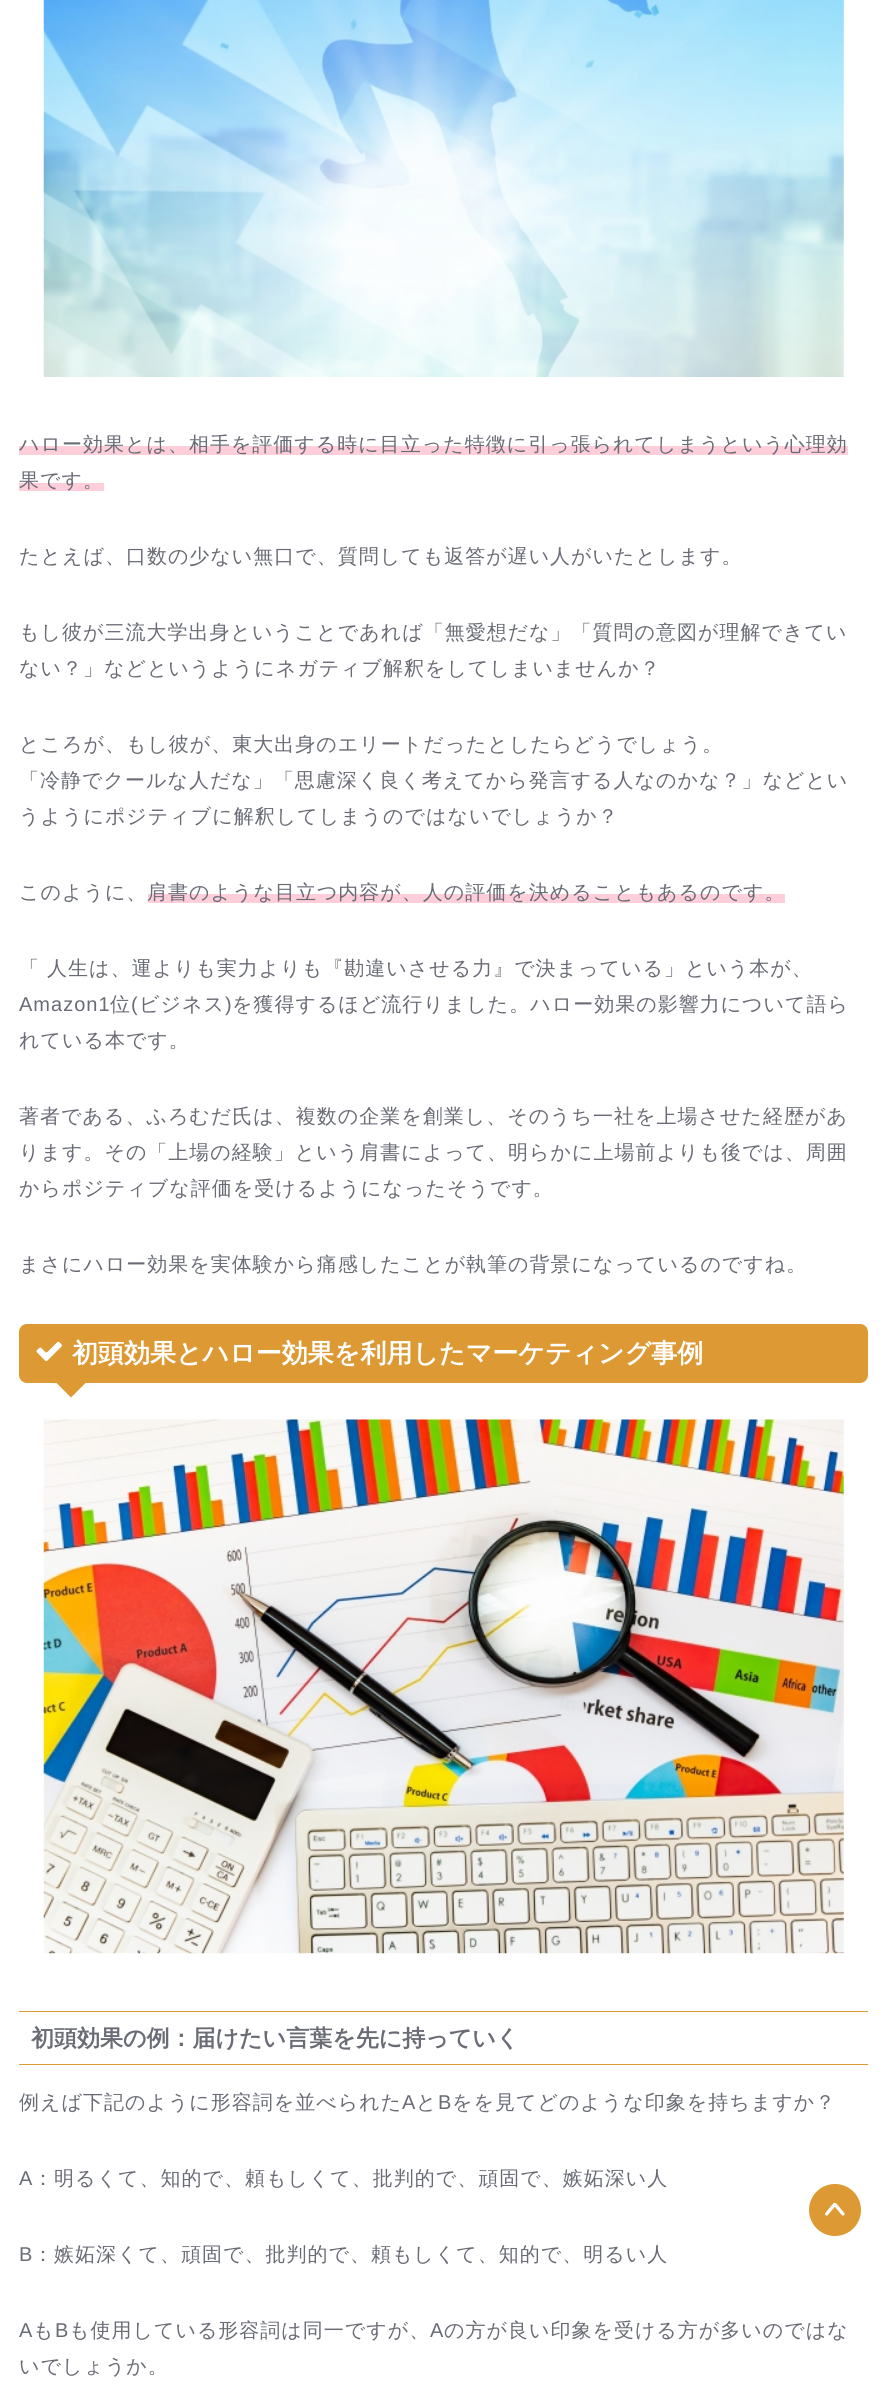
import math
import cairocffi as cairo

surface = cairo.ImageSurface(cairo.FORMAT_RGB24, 886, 2390)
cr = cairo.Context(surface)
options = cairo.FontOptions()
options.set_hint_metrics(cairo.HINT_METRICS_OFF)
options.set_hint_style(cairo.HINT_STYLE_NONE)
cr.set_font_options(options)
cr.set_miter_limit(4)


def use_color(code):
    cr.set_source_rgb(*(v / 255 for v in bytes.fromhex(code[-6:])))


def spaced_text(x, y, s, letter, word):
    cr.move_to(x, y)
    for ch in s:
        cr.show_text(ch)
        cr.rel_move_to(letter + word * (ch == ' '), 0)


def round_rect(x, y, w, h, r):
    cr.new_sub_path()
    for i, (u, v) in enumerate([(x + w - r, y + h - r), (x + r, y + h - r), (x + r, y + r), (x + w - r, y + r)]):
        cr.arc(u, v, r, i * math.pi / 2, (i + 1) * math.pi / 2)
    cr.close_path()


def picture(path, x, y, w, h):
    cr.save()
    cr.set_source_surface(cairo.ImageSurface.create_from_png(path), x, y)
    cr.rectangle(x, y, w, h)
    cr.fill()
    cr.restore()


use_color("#ffffff")
cr.paint()
picture("img1.png", 43, 0, 801, 377)
use_color("#ffcedb")
cr.rectangle(19, 446, 829, 9)
cr.fill()
cr.select_font_face("WenQuanYi Zen Hei Medium")
cr.set_font_size(20)
use_color("#696b75")
spaced_text(19, 451, "ハロー効果とは、相手を評価する時に目立った特徴に引っ張られてしまうという心理効", 1, 0)
use_color("#ffcedb")
cr.rectangle(19, 483, 85, 8)
cr.fill()
use_color("#696b75")
spaced_text(19, 487, "果です。", 1, 0)
spaced_text(19, 563, "たとえば、口数の少ない無口で、質問しても返答が遅い人がいたとします。", 1, 0)
spaced_text(19, 639, "もし彼が三流大学出身ということであれば「無愛想だな」「質問の意図が理解できてい", 1, 0)
spaced_text(19, 675, "ない？」などというようにネガティブ解釈をしてしまいませんか？", 1, 0)
spaced_text(19, 751, "ところが、もし彼が、東大出身のエリートだったとしたらどうでしょう。", 1, 0)
spaced_text(19, 787, "「冷静でクールな人だな」「思慮深く良く考えてから発言する人なのかな？」などとい", 1, 0)
spaced_text(19, 823, "うようにポジティブに解釈してしまうのではないでしょうか？", 1, 0)
spaced_text(19, 899, "このように、", 1, 0)
use_color("#ffcedb")
cr.rectangle(148, 894, 637, 9)
cr.fill()
use_color("#696b75")
spaced_text(147, 899, "肩書のような目立つ内容が、人の評価を決めることもあるのです。", 1, 0)
spaced_text(19, 975, "「 人生は、運よりも実力よりも『勘違いさせる力』で決まっている」という本が、", 1, 0)
cr.select_font_face("Liberation Sans")
spaced_text(19, 1011, "Amazon1", 1, 0)
cr.select_font_face("WenQuanYi Zen Hei Medium")
spaced_text(110, 1011, "位", 1, 0)
cr.select_font_face("Liberation Sans")
spaced_text(131, 1011, "(", 1, 0)
cr.select_font_face("WenQuanYi Zen Hei Medium")
spaced_text(139, 1011, "ビジネス", 1, 0)
cr.select_font_face("Liberation Sans")
spaced_text(225, 1011, ")", 1, 0)
cr.select_font_face("WenQuanYi Zen Hei Medium")
spaced_text(232, 1011, "を獲得するほど流行りました。ハロー効果の影響力について語ら", 1, 0)
spaced_text(19, 1047, "れている本です。", 1, 0)
spaced_text(19, 1123, "著者である、ふろむだ氏は、複数の企業を創業し、そのうち一社を上場させた経歴があ", 1, 0)
spaced_text(19, 1159, "ります。その「上場の経験」という肩書によって、明らかに上場前よりも後では、周囲", 1, 0)
spaced_text(19, 1195, "からポジティブな評価を受けるようになったそうです。", 1, 0)
spaced_text(19, 1271, "まさにハロー効果を実体験から痛感したことが執筆の背景になっているのですね。", 1, 0)
use_color("#dd9933")
round_rect(19, 1324, 849, 59, 8)
cr.fill()
picture("img2.png", 36, 1341, 26, 21)
cr.select_font_face("WenQuanYi Zen Hei", cairo.FONT_SLANT_NORMAL, cairo.FONT_WEIGHT_BOLD)
cr.set_font_size(26)
use_color("#ffffff")
cr.move_to(72, 1362)
cr.show_text("初頭効果とハロー効果を利用したマーケティング事例")
use_color("#dd9933")
cr.new_path()
cr.move_to(56, 1382.5)
cr.line_to(86, 1382.5)
cr.line_to(71, 1397.5)
cr.close_path()
cr.fill()
picture("img3.png", 43, 1419, 801, 535)
cr.rectangle(19, 2011, 849, 1)
cr.fill()
cr.rectangle(19, 2064, 849, 1)
cr.fill()
cr.set_font_size(23)
use_color("#696b75")
cr.move_to(31, 2046)
cr.show_text("初頭効果の例：届けたい言葉を先に持っていく")
cr.select_font_face("WenQuanYi Zen Hei Medium")
cr.set_font_size(20)
spaced_text(19, 2109, "例えば下記のように形容詞を並べられた", 1, 0)
cr.select_font_face("Liberation Sans")
spaced_text(402, 2109, "A", 1, 0)
cr.select_font_face("WenQuanYi Zen Hei Medium")
spaced_text(416, 2109, "と", 1, 0)
cr.select_font_face("Liberation Sans")
spaced_text(438, 2109, "B", 1, 0)
cr.select_font_face("WenQuanYi Zen Hei Medium")
spaced_text(452, 2109, "をを見てどのような印象を持ちますか？", 1, 0)
cr.select_font_face("Liberation Sans")
spaced_text(19, 2185, "A", 1, 0)
cr.select_font_face("WenQuanYi Zen Hei Medium")
spaced_text(33, 2185, "：明るくて、知的で、頼もしくて、批判的で、頑固で、嫉妬深い人", 1, 0)
cr.select_font_face("Liberation Sans")
spaced_text(19, 2261, "B", 1, 0)
cr.select_font_face("WenQuanYi Zen Hei Medium")
spaced_text(33, 2261, "：嫉妬深くて、頑固で、批判的で、頼もしくて、知的で、明るい人", 1, 0)
cr.select_font_face("Liberation Sans")
spaced_text(19, 2337, "A", 1, 0)
cr.select_font_face("WenQuanYi Zen Hei Medium")
spaced_text(33, 2337, "も", 1, 0)
cr.select_font_face("Liberation Sans")
spaced_text(55, 2337, "B", 1, 0)
cr.select_font_face("WenQuanYi Zen Hei Medium")
spaced_text(69, 2337, "も使用している形容詞は同一ですが、", 1, 0)
cr.select_font_face("Liberation Sans")
spaced_text(430, 2337, "A", 1, 0)
cr.select_font_face("WenQuanYi Zen Hei Medium")
spaced_text(444, 2337, "の方が良い印象を受ける方が多いのではな", 1, 0)
spaced_text(19, 2373, "いでしょうか。", 1, 0)
use_color("#dd9933")
cr.new_path()
cr.arc(835, 2210, 26, 0, 2 * math.pi)
cr.fill()
picture("img4.png", 825, 2202, 20, 14)
surface.write_to_png("result.png")
